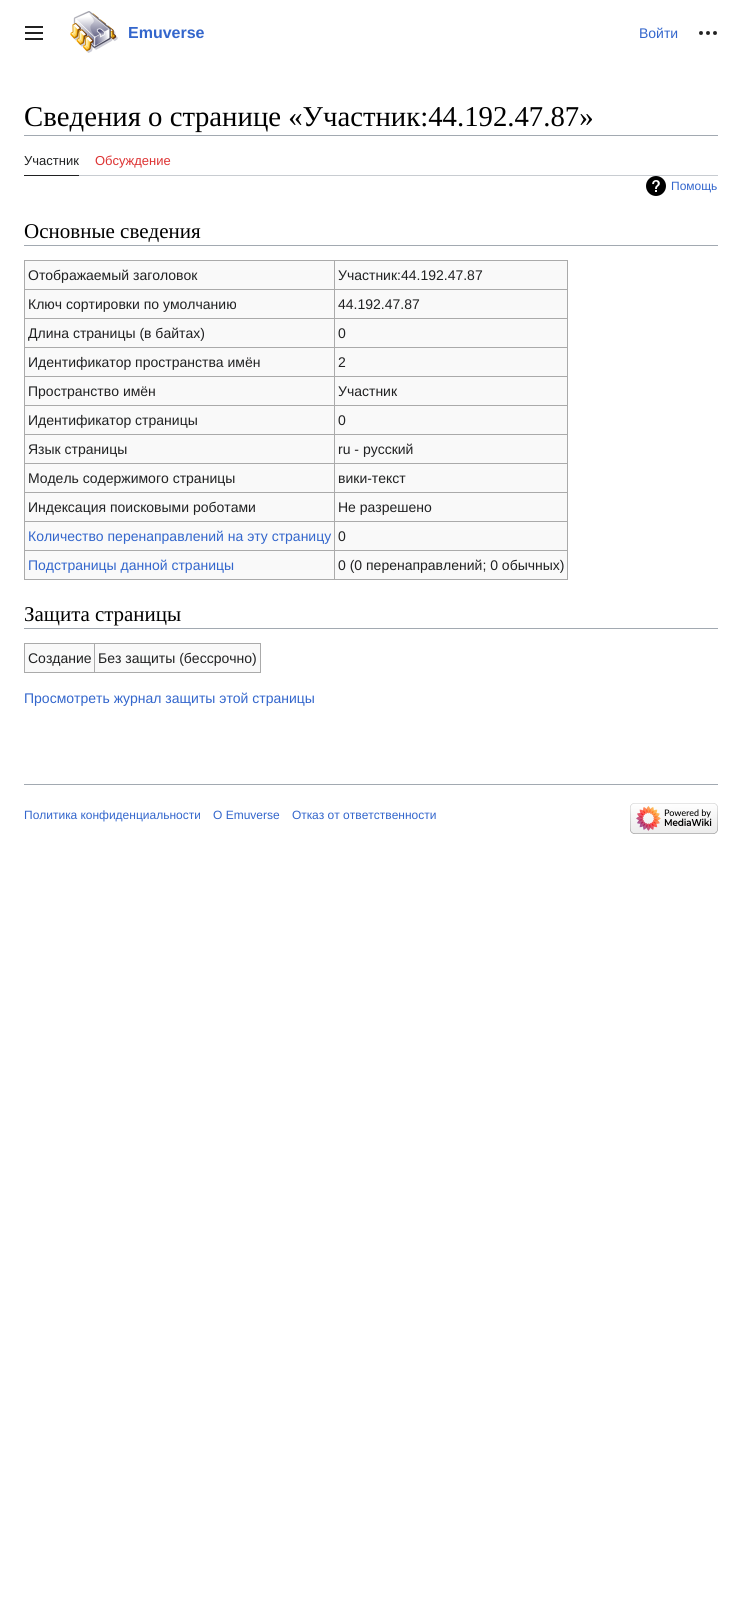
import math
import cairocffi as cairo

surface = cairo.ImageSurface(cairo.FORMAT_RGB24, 742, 1621)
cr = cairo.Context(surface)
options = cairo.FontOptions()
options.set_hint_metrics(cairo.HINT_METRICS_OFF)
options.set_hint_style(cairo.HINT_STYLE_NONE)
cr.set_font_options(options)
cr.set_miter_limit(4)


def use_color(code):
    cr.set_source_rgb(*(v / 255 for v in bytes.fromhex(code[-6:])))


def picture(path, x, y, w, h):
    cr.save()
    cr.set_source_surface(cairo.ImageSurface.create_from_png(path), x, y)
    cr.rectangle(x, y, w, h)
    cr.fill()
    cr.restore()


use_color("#ffffff")
cr.paint()
picture("img1.png", 25, 26, 18, 14)
picture("img2.png", 70, 11, 48, 42)
cr.select_font_face("Liberation Sans", cairo.FONT_SLANT_NORMAL, cairo.FONT_WEIGHT_BOLD)
cr.set_font_size(16)
use_color("#3366cc")
cr.move_to(128, 38)
cr.show_text("Emuverse")
cr.select_font_face("Liberation Sans")
cr.set_font_size(14)
cr.move_to(639, 38)
cr.show_text("Войти")
picture("img3.png", 699, 31, 18, 4)
use_color("#a2a9b1")
cr.rectangle(24, 135, 694, 1)
cr.fill()
cr.select_font_face("Liberation Serif")
cr.set_font_size(28.75)
use_color("#000000")
cr.move_to(24, 126)
cr.show_text("Сведения о странице «Участник:44.192.47.87»")
use_color("#c8ccd1")
cr.rectangle(79, 175, 639, 1)
cr.fill()
use_color("#202122")
cr.rectangle(24, 175, 55, 1)
cr.fill()
cr.select_font_face("Liberation Sans")
cr.set_font_size(13)
cr.move_to(24, 165)
cr.show_text("Участник")
use_color("#dd3333")
cr.move_to(95, 165)
cr.show_text("Обсуждение")
picture("img4.png", 646, 176, 20, 20)
cr.set_font_size(12)
use_color("#3366cc")
cr.move_to(671, 190)
cr.show_text("Помощь")
use_color("#a2a9b1")
cr.rectangle(24, 245, 694, 1)
cr.fill()
cr.select_font_face("Liberation Serif")
cr.set_font_size(21)
use_color("#000000")
cr.move_to(24, 238)
cr.show_text("Основные сведения")
use_color("#f9f9f9")
cr.rectangle(25, 261, 542, 318)
cr.fill()
use_color("#aaaaaa")
cr.rectangle(24, 260, 544, 1)
cr.fill()
cr.rectangle(567, 260, 1, 320)
cr.fill()
cr.rectangle(24, 579, 544, 1)
cr.fill()
cr.rectangle(24, 260, 1, 320)
cr.fill()
cr.select_font_face("Liberation Sans")
cr.set_font_size(14)
use_color("#202122")
cr.move_to(28, 280)
cr.show_text("Отображаемый заголовок")
use_color("#aaaaaa")
cr.rectangle(334, 289, 234, 1)
cr.fill()
cr.rectangle(334, 318, 234, 1)
cr.fill()
cr.rectangle(334, 347, 234, 1)
cr.fill()
cr.rectangle(334, 376, 234, 1)
cr.fill()
cr.rectangle(334, 405, 234, 1)
cr.fill()
cr.rectangle(334, 434, 234, 1)
cr.fill()
cr.rectangle(334, 463, 234, 1)
cr.fill()
cr.rectangle(334, 492, 234, 1)
cr.fill()
cr.rectangle(334, 521, 234, 1)
cr.fill()
cr.rectangle(334, 550, 234, 1)
cr.fill()
cr.rectangle(334, 550, 1, 30)
cr.fill()
cr.rectangle(24, 550, 311, 1)
cr.fill()
cr.rectangle(334, 521, 1, 30)
cr.fill()
cr.rectangle(24, 521, 311, 1)
cr.fill()
cr.rectangle(334, 492, 1, 30)
cr.fill()
cr.rectangle(24, 492, 311, 1)
cr.fill()
cr.rectangle(334, 463, 1, 30)
cr.fill()
cr.rectangle(24, 463, 311, 1)
cr.fill()
cr.rectangle(334, 434, 1, 30)
cr.fill()
cr.rectangle(24, 434, 311, 1)
cr.fill()
cr.rectangle(334, 405, 1, 30)
cr.fill()
cr.rectangle(24, 405, 311, 1)
cr.fill()
cr.rectangle(334, 376, 1, 30)
cr.fill()
cr.rectangle(24, 376, 311, 1)
cr.fill()
cr.rectangle(334, 347, 1, 30)
cr.fill()
cr.rectangle(24, 347, 311, 1)
cr.fill()
cr.rectangle(334, 318, 1, 30)
cr.fill()
cr.rectangle(24, 318, 311, 1)
cr.fill()
cr.rectangle(334, 289, 1, 30)
cr.fill()
cr.rectangle(24, 289, 311, 1)
cr.fill()
cr.rectangle(334, 260, 1, 30)
cr.fill()
use_color("#202122")
cr.move_to(338, 280)
cr.show_text("Участник:44.192.47.87")
cr.move_to(28, 309)
cr.show_text("Ключ сортировки по умолчанию")
cr.move_to(338, 309)
cr.show_text("44.192.47.87")
cr.move_to(28, 338)
cr.show_text("Длина страницы (в байтах)")
cr.move_to(338, 338)
cr.show_text("0")
cr.move_to(28, 367)
cr.show_text("Идентификатор пространства имён")
cr.move_to(338, 367)
cr.show_text("2")
cr.move_to(28, 396)
cr.show_text("Пространство имён")
cr.move_to(338, 396)
cr.show_text("Участник")
cr.move_to(28, 425)
cr.show_text("Идентификатор страницы")
cr.move_to(338, 425)
cr.show_text("0")
cr.move_to(28, 454)
cr.show_text("Язык страницы")
cr.move_to(338, 454)
cr.show_text("ru - русский")
cr.move_to(28, 483)
cr.show_text("Модель содержимого страницы")
cr.move_to(338, 483)
cr.show_text("вики-текст")
cr.move_to(28, 512)
cr.show_text("Индексация поисковыми роботами")
cr.move_to(338, 512)
cr.show_text("Не разрешено")
use_color("#3366cc")
cr.move_to(28, 541)
cr.show_text("Количество перенаправлений на эту страницу")
use_color("#202122")
cr.move_to(338, 541)
cr.show_text("0")
use_color("#3366cc")
cr.move_to(28, 570)
cr.show_text("Подстраницы данной страницы")
use_color("#202122")
cr.move_to(338, 570)
cr.show_text("0 (0 перенаправлений; 0 обычных)")
use_color("#a2a9b1")
cr.rectangle(24, 628, 694, 1)
cr.fill()
cr.select_font_face("Liberation Serif")
cr.set_font_size(21)
use_color("#000000")
cr.move_to(24, 621)
cr.show_text("Защита страницы")
use_color("#f9f9f9")
cr.rectangle(25, 644, 235, 28)
cr.fill()
use_color("#aaaaaa")
cr.rectangle(24, 643, 237, 1)
cr.fill()
cr.rectangle(260, 643, 1, 30)
cr.fill()
cr.rectangle(24, 672, 237, 1)
cr.fill()
cr.rectangle(24, 643, 1, 30)
cr.fill()
cr.select_font_face("Liberation Sans")
cr.set_font_size(14)
use_color("#202122")
cr.move_to(28, 663)
cr.show_text("Создание")
use_color("#aaaaaa")
cr.rectangle(94, 643, 1, 30)
cr.fill()
use_color("#202122")
cr.move_to(98, 663)
cr.show_text("Без защиты (бессрочно)")
use_color("#3366cc")
cr.move_to(24, 703)
cr.show_text("Просмотреть журнал защиты этой страницы")
use_color("#a2a9b1")
cr.rectangle(24, 784, 694, 1)
cr.fill()
cr.set_font_size(12)
use_color("#3366cc")
cr.move_to(24, 819)
cr.show_text("Политика конфиденциальности")
cr.move_to(213, 819)
cr.show_text("О Emuverse")
cr.move_to(292, 819)
cr.show_text("Отказ от ответственности")
picture("img5.png", 630, 803, 88, 31)
surface.write_to_png("result.png")
